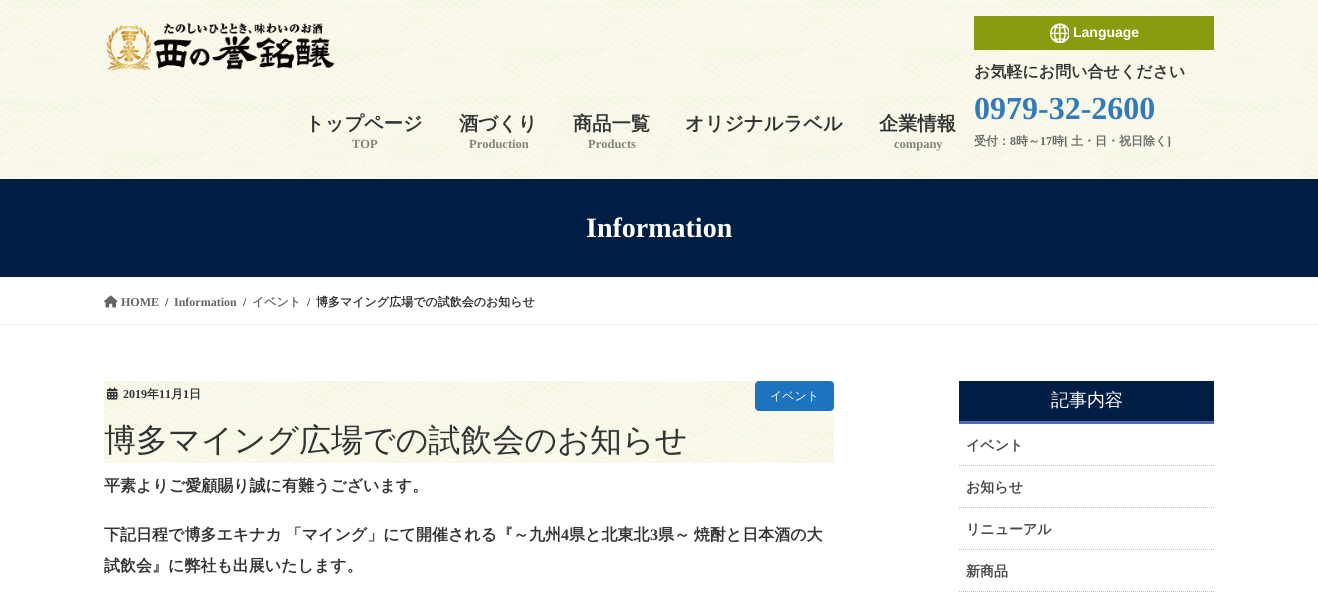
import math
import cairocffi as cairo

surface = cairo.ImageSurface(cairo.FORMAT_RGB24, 1318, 606)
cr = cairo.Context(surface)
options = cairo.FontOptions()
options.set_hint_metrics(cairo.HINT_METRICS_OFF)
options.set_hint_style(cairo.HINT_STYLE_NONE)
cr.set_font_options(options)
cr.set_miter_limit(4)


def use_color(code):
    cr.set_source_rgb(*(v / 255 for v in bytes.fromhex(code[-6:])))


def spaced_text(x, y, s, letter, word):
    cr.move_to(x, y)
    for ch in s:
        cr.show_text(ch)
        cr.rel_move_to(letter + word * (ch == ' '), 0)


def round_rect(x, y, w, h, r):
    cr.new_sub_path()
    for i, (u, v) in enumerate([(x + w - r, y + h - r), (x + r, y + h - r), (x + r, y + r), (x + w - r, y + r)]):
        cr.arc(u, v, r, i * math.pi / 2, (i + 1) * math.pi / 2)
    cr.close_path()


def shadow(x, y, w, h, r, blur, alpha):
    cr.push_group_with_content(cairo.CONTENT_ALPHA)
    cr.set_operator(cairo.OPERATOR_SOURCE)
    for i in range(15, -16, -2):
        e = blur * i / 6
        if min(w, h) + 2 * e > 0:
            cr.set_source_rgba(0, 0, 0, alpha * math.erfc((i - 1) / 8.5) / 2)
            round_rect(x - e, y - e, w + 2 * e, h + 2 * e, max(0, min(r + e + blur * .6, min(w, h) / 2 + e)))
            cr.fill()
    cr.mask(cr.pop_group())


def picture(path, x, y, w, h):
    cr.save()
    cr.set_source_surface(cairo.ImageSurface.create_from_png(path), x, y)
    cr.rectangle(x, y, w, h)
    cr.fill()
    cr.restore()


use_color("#ffffff")
cr.paint()
use_color("#001e43")
cr.rectangle(0, 179, 1318, 98)
cr.fill()
use_color("#000000")
shadow(0, 1, 1318, 179, 0, 1.5, 0.1)
picture("img1.png", 0, 0, 1318, 179)
picture("img2.png", 287, 96, 154, 69)
cr.select_font_face("WenQuanYi Zen Hei", cairo.FONT_SLANT_NORMAL, cairo.FONT_WEIGHT_BOLD)
cr.set_font_size(19.25)
use_color("#333333")
cr.move_to(305, 130)
cr.show_text("トップページ")
cr.select_font_face("Liberation Serif", cairo.FONT_SLANT_NORMAL, cairo.FONT_WEIGHT_BOLD)
cr.set_font_size(12.5)
use_color("#82827c")
cr.move_to(352, 148)
cr.show_text("TOP")
picture("img3.png", 441, 96, 114, 69)
cr.select_font_face("WenQuanYi Zen Hei", cairo.FONT_SLANT_NORMAL, cairo.FONT_WEIGHT_BOLD)
cr.set_font_size(19.25)
use_color("#333333")
cr.move_to(459, 130)
cr.show_text("酒づくり")
cr.select_font_face("Liberation Serif", cairo.FONT_SLANT_NORMAL, cairo.FONT_WEIGHT_BOLD)
cr.set_font_size(12.5)
use_color("#82827c")
cr.move_to(469, 148)
cr.show_text("Production")
picture("img4.png", 555, 96, 113, 69)
cr.select_font_face("WenQuanYi Zen Hei", cairo.FONT_SLANT_NORMAL, cairo.FONT_WEIGHT_BOLD)
cr.set_font_size(19.25)
use_color("#333333")
cr.move_to(573, 130)
cr.show_text("商品一覧")
cr.select_font_face("Liberation Serif", cairo.FONT_SLANT_NORMAL, cairo.FONT_WEIGHT_BOLD)
cr.set_font_size(12.5)
use_color("#82827c")
cr.move_to(588, 148)
cr.show_text("Products")
picture("img5.png", 668, 96, 193, 69)
cr.select_font_face("WenQuanYi Zen Hei", cairo.FONT_SLANT_NORMAL, cairo.FONT_WEIGHT_BOLD)
cr.set_font_size(19.25)
use_color("#333333")
cr.move_to(685, 130)
cr.show_text("オリジナルラベル")
picture("img6.png", 861, 96, 113, 69)
cr.move_to(879, 130)
cr.show_text("企業情報")
cr.select_font_face("Liberation Serif", cairo.FONT_SLANT_NORMAL, cairo.FONT_WEIGHT_BOLD)
cr.set_font_size(12.5)
use_color("#82827c")
cr.move_to(894, 148)
cr.show_text("company")
picture("img7.png", 106, 23, 229, 48)
use_color("#8a9b0f")
cr.rectangle(974, 16, 240, 34)
cr.fill()
picture("img8.png", 1050, 23, 19, 20)
cr.select_font_face("Liberation Sans", cairo.FONT_SLANT_NORMAL, cairo.FONT_WEIGHT_BOLD)
cr.set_font_size(14)
use_color("#ffffff")
cr.move_to(1073, 37)
cr.show_text("Language")
cr.select_font_face("WenQuanYi Zen Hei", cairo.FONT_SLANT_NORMAL, cairo.FONT_WEIGHT_BOLD)
cr.set_font_size(16)
use_color("#333333")
cr.move_to(974, 77)
cr.show_text("お気軽にお問い合せください")
cr.select_font_face("Liberation Serif", cairo.FONT_SLANT_NORMAL, cairo.FONT_WEIGHT_BOLD)
cr.set_font_size(32)
use_color("#337ab7")
cr.move_to(974, 119)
cr.show_text("0979-32-2600")
cr.select_font_face("WenQuanYi Zen Hei", cairo.FONT_SLANT_NORMAL, cairo.FONT_WEIGHT_BOLD)
cr.set_font_size(12)
use_color("#666666")
cr.move_to(974, 145)
cr.show_text("受付：")
cr.select_font_face("Liberation Serif", cairo.FONT_SLANT_NORMAL, cairo.FONT_WEIGHT_BOLD)
cr.move_to(1010, 145)
cr.show_text("8")
cr.select_font_face("WenQuanYi Zen Hei", cairo.FONT_SLANT_NORMAL, cairo.FONT_WEIGHT_BOLD)
cr.move_to(1016, 145)
cr.show_text("時～")
cr.select_font_face("Liberation Serif", cairo.FONT_SLANT_NORMAL, cairo.FONT_WEIGHT_BOLD)
cr.move_to(1040, 145)
cr.show_text("17")
cr.select_font_face("WenQuanYi Zen Hei", cairo.FONT_SLANT_NORMAL, cairo.FONT_WEIGHT_BOLD)
cr.move_to(1052, 145)
cr.show_text("時")
cr.select_font_face("Liberation Serif", cairo.FONT_SLANT_NORMAL, cairo.FONT_WEIGHT_BOLD)
cr.move_to(1064, 145)
cr.show_text("[")
cr.select_font_face("WenQuanYi Zen Hei", cairo.FONT_SLANT_NORMAL, cairo.FONT_WEIGHT_BOLD)
cr.move_to(1071, 145)
cr.show_text("土・日・祝日除く")
cr.select_font_face("Liberation Serif", cairo.FONT_SLANT_NORMAL, cairo.FONT_WEIGHT_BOLD)
cr.move_to(1167, 145)
cr.show_text("]")
cr.set_font_size(28)
use_color("#ffffff")
cr.move_to(586, 237)
cr.show_text("Information")
use_color("#f2f2f2")
cr.rectangle(0, 324, 1318, 1)
cr.fill()
picture("img9.png", 104, 295, 14, 13)
cr.set_font_size(12)
use_color("#666666")
cr.move_to(121, 306)
cr.show_text("HOME")
use_color("#333333")
cr.move_to(165, 306)
cr.show_text("/")
use_color("#666666")
cr.move_to(174, 306)
cr.show_text("Information")
use_color("#333333")
cr.move_to(243, 306)
cr.show_text("/")
cr.select_font_face("WenQuanYi Zen Hei", cairo.FONT_SLANT_NORMAL, cairo.FONT_WEIGHT_BOLD)
use_color("#666666")
cr.move_to(252, 306)
cr.show_text("イベント")
cr.select_font_face("Liberation Serif", cairo.FONT_SLANT_NORMAL, cairo.FONT_WEIGHT_BOLD)
use_color("#333333")
cr.move_to(307, 306)
cr.show_text("/")
cr.select_font_face("WenQuanYi Zen Hei", cairo.FONT_SLANT_NORMAL, cairo.FONT_WEIGHT_BOLD)
cr.move_to(316, 306)
cr.show_text("博多マイング広場での試飲会のお知らせ")
picture("img10.png", 104, 381, 730, 82)
picture("img11.png", 107, 387, 11, 13)
cr.select_font_face("Liberation Serif", cairo.FONT_SLANT_NORMAL, cairo.FONT_WEIGHT_BOLD)
cr.move_to(123, 398)
cr.show_text("2019")
cr.select_font_face("WenQuanYi Zen Hei", cairo.FONT_SLANT_NORMAL, cairo.FONT_WEIGHT_BOLD)
cr.move_to(147, 398)
cr.show_text("年")
cr.select_font_face("Liberation Serif", cairo.FONT_SLANT_NORMAL, cairo.FONT_WEIGHT_BOLD)
cr.move_to(159, 398)
cr.show_text("11")
cr.select_font_face("WenQuanYi Zen Hei", cairo.FONT_SLANT_NORMAL, cairo.FONT_WEIGHT_BOLD)
cr.move_to(171, 398)
cr.show_text("月")
cr.select_font_face("Liberation Serif", cairo.FONT_SLANT_NORMAL, cairo.FONT_WEIGHT_BOLD)
cr.move_to(183, 398)
cr.show_text("1")
cr.select_font_face("WenQuanYi Zen Hei", cairo.FONT_SLANT_NORMAL, cairo.FONT_WEIGHT_BOLD)
cr.move_to(189, 398)
cr.show_text("日")
use_color("#1e73be")
round_rect(755, 381, 79, 30, 4)
cr.fill()
cr.select_font_face("WenQuanYi Zen Hei Medium")
use_color("#ffffff")
cr.move_to(770, 400)
cr.show_text("イベント")
cr.set_font_size(32)
use_color("#333333")
cr.move_to(104, 451)
cr.show_text("博多マイング広場での試飲会のお知らせ")
cr.select_font_face("WenQuanYi Zen Hei", cairo.FONT_SLANT_NORMAL, cairo.FONT_WEIGHT_BOLD)
cr.set_font_size(16)
cr.move_to(104, 491)
cr.show_text("平素よりご愛顧賜り誠に有難うございます。")
spaced_text(104, 540, "下記日程で博多エキナカ 「マイング」にて開催される『～九州", 0, -1)
cr.select_font_face("Liberation Serif", cairo.FONT_SLANT_NORMAL, cairo.FONT_WEIGHT_BOLD)
cr.move_to(561, 540)
cr.show_text("4")
cr.select_font_face("WenQuanYi Zen Hei", cairo.FONT_SLANT_NORMAL, cairo.FONT_WEIGHT_BOLD)
cr.move_to(569, 540)
cr.show_text("県と北東北")
cr.select_font_face("Liberation Serif", cairo.FONT_SLANT_NORMAL, cairo.FONT_WEIGHT_BOLD)
cr.move_to(650, 540)
cr.show_text("3")
cr.select_font_face("WenQuanYi Zen Hei", cairo.FONT_SLANT_NORMAL, cairo.FONT_WEIGHT_BOLD)
spaced_text(658, 540, "県～ 焼酎と日本酒の大", 0, -1)
cr.move_to(104, 571)
cr.show_text("試飲会』に弊社も出展いたします。")
use_color("#001e43")
cr.rectangle(959, 381, 255, 40)
cr.fill()
use_color("#516ab6")
cr.rectangle(959, 421, 255, 3)
cr.fill()
cr.select_font_face("WenQuanYi Zen Hei Medium")
cr.set_font_size(18)
use_color("#ffffff")
cr.move_to(1051, 406)
cr.show_text("記事内容")
cr.new_path()
cr.move_to(959, 465.5)
cr.line_to(1214, 465.5)
use_color("#c0c0c0")
cr.set_line_width(1)
cr.set_dash([1, 1])
cr.stroke()
cr.select_font_face("WenQuanYi Zen Hei", cairo.FONT_SLANT_NORMAL, cairo.FONT_WEIGHT_BOLD)
cr.set_font_size(14)
use_color("#464646")
cr.move_to(966, 450)
cr.show_text("イベント")
cr.new_path()
cr.move_to(959, 507.5)
cr.line_to(1214, 507.5)
use_color("#c0c0c0")
cr.stroke()
use_color("#464646")
cr.move_to(966, 492)
cr.show_text("お知らせ")
cr.new_path()
cr.move_to(959, 549.5)
cr.line_to(1214, 549.5)
use_color("#c0c0c0")
cr.stroke()
use_color("#464646")
cr.move_to(966, 534)
cr.show_text("リニューアル")
cr.new_path()
cr.move_to(959, 591.5)
cr.line_to(1214, 591.5)
use_color("#c0c0c0")
cr.stroke()
use_color("#464646")
cr.move_to(966, 576)
cr.show_text("新商品")
surface.write_to_png("result.png")
